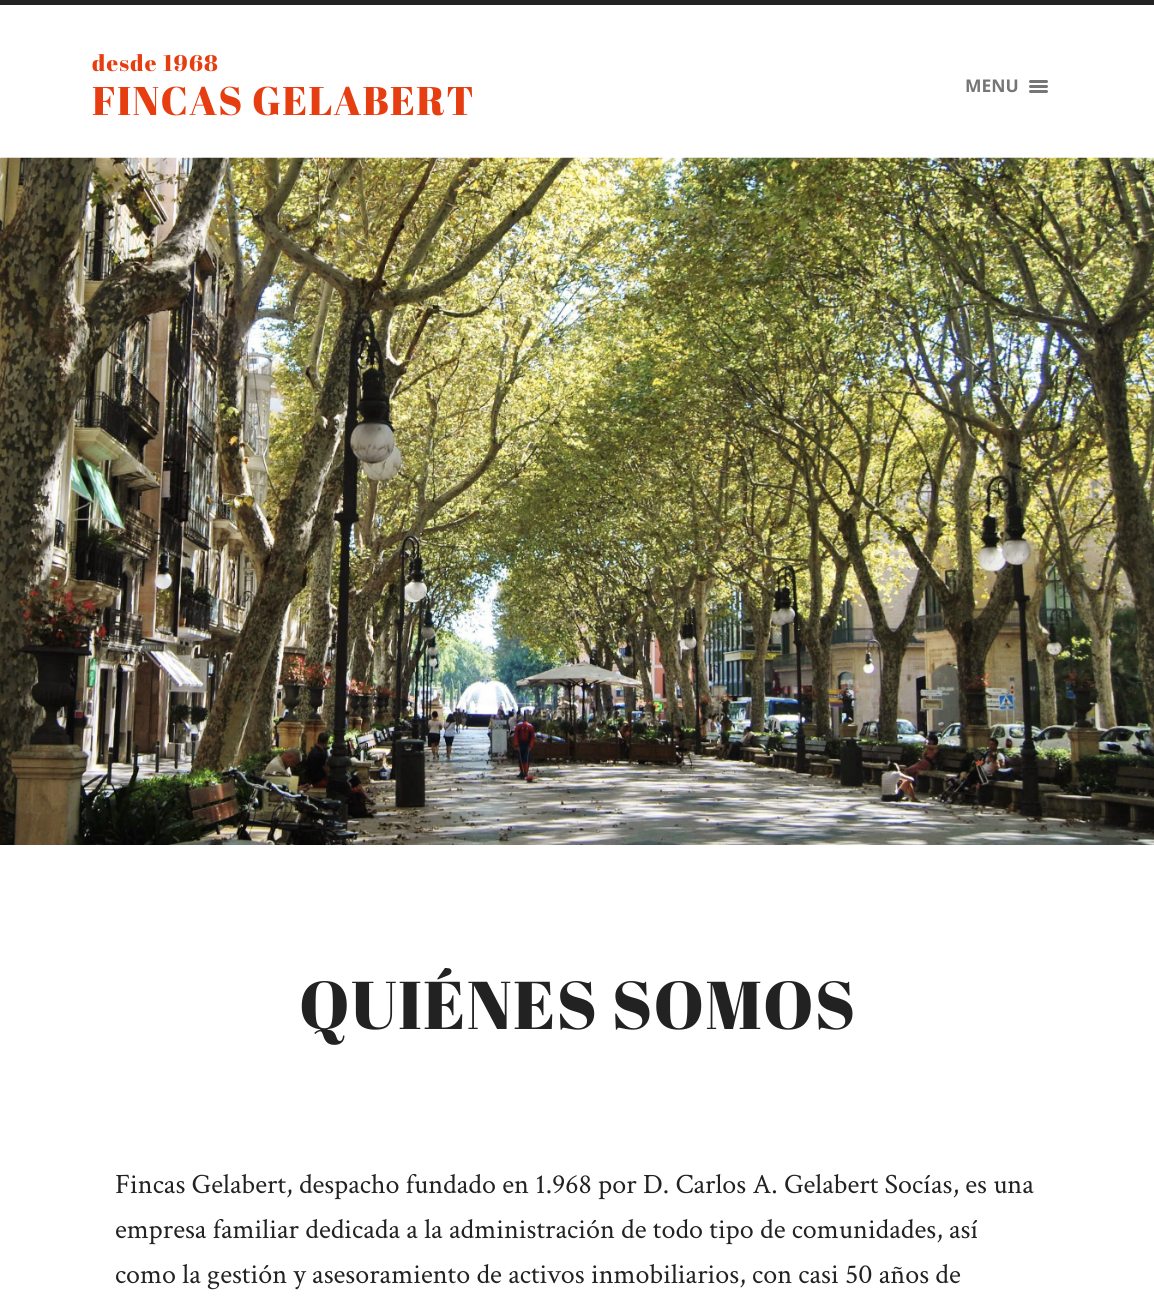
import math
import cairocffi as cairo

surface = cairo.ImageSurface(cairo.FORMAT_RGB24, 1154, 1307)
cr = cairo.Context(surface)
options = cairo.FontOptions()
options.set_hint_metrics(cairo.HINT_METRICS_OFF)
options.set_hint_style(cairo.HINT_STYLE_NONE)
cr.set_font_options(options)
cr.set_miter_limit(4)


def use_color(code):
    cr.set_source_rgb(*(v / 255 for v in bytes.fromhex(code[-6:])))


def spaced_text(x, y, s, letter, word):
    cr.move_to(x, y)
    for ch in s:
        cr.show_text(ch)
        cr.rel_move_to(letter + word * (ch == ' '), 0)


def round_rect(x, y, w, h, r):
    cr.new_sub_path()
    for i, (u, v) in enumerate([(x + w - r, y + h - r), (x + r, y + h - r), (x + r, y + r), (x + w - r, y + r)]):
        cr.arc(u, v, r, i * math.pi / 2, (i + 1) * math.pi / 2)
    cr.close_path()


def picture(path, x, y, w, h):
    cr.save()
    cr.set_source_surface(cairo.ImageSurface.create_from_png(path), x, y)
    cr.rectangle(x, y, w, h)
    cr.fill()
    cr.restore()


use_color("#ffffff")
cr.paint()
use_color("#222222")
cr.rectangle(0, 0, 1154, 5)
cr.fill()
cr.select_font_face("Abril Fatface")
cr.set_font_size(22.5)
use_color("#e63e11")
spaced_text(92, 71, "desde 1968", 1.25, 0)
cr.set_font_size(40)
spaced_text(92, 115, "FINCAS GELABERT", 1.25, 0)
cr.select_font_face("Open Sans", cairo.FONT_SLANT_NORMAL, cairo.FONT_WEIGHT_BOLD)
cr.set_font_size(17.5)
use_color("#767676")
cr.move_to(965, 92)
cr.show_text("MENU")
round_rect(1029, 80, 19, 3, 1.5)
cr.fill()
round_rect(1029, 85, 19, 3, 1.5)
cr.fill()
round_rect(1029, 90, 19, 3, 1.5)
cr.fill()
picture("img1.png", 0, 157, 1154, 688)
cr.select_font_face("Abril Fatface")
cr.set_font_size(67.5)
use_color("#222222")
spaced_text(299, 1029, "QUIÉNES SOMOS", 1.25, 0)
cr.select_font_face("Crimson Text")
cr.set_font_size(28.1)
cr.move_to(115, 1193)
cr.show_text("Fincas Gelabert, despacho fundado en 1.968 por D. Carlos A. Gelabert Socías, es una")
cr.move_to(115, 1238)
cr.show_text("empresa familiar dedicada a la administración de todo tipo de comunidades, así")
cr.move_to(115, 1283)
cr.show_text("como la gestión y asesoramiento de activos inmobiliarios, con casi 50 años de")
surface.write_to_png("result.png")
